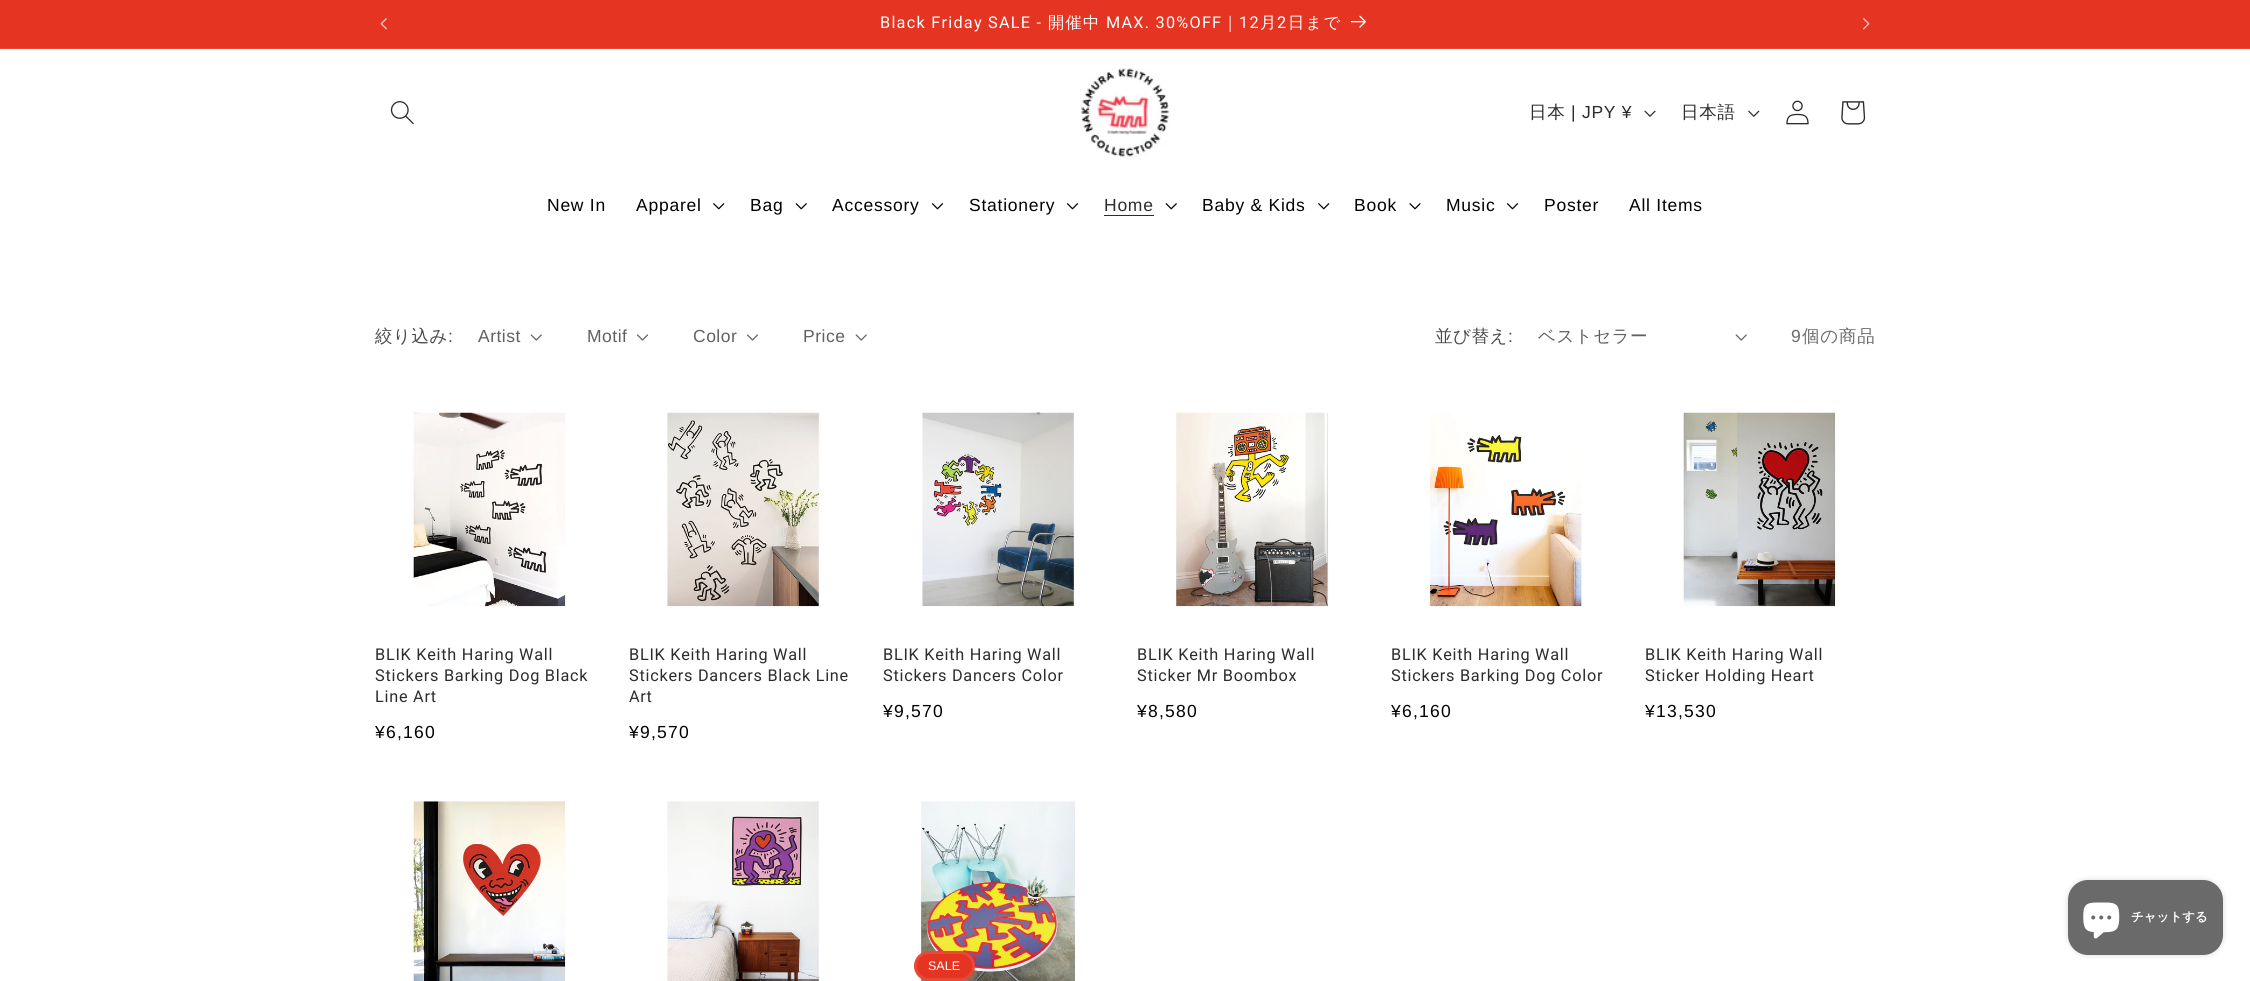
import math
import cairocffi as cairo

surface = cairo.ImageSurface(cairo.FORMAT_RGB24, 2250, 981)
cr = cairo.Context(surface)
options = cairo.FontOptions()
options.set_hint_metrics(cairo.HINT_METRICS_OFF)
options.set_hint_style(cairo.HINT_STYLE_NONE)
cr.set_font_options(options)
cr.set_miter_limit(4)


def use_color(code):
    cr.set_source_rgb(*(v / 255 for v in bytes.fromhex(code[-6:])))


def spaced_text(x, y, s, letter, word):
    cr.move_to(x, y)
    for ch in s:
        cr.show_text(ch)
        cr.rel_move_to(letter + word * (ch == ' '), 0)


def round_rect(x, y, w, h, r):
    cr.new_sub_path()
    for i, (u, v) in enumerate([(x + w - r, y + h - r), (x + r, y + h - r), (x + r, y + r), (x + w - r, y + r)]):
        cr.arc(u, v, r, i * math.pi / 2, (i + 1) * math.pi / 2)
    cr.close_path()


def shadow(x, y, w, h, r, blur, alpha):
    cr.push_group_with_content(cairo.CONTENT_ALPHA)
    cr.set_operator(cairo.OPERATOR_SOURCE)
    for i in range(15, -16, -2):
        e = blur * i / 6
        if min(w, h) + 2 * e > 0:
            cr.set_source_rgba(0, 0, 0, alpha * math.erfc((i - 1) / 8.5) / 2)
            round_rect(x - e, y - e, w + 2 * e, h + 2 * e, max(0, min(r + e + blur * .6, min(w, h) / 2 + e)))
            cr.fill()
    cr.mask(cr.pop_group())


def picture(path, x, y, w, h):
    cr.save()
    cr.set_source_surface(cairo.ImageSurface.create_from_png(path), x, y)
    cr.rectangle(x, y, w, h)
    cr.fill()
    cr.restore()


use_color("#ffffff")
cr.paint()
use_color("#e63422")
cr.rectangle(0, 0, 2250, 48)
cr.fill()
use_color("#e84434")
cr.rectangle(0, 48, 2250, 1)
cr.fill()
picture("img1.png", 380, 18, 7, 12)
cr.select_font_face("Roboto")
cr.set_font_size(16.25)
use_color("#ffffff")
spaced_text(880, 28, "Black Friday SALE -", 1.25, 0)
cr.select_font_face("WenQuanYi Zen Hei Medium")
spaced_text(1048, 28, "開催中", 1.25, 0)
cr.select_font_face("Roboto")
spaced_text(1106, 28, "MAX. 30%OFF", 1.25, 0)
cr.select_font_face("WenQuanYi Zen Hei Medium")
spaced_text(1222, 28, "｜", 1.25, 0)
cr.select_font_face("Roboto")
spaced_text(1239, 28, "12", 1.25, 0)
cr.select_font_face("WenQuanYi Zen Hei Medium")
spaced_text(1260, 28, "月", 1.25, 0)
cr.select_font_face("Roboto")
spaced_text(1277, 28, "2", 1.25, 0)
cr.select_font_face("WenQuanYi Zen Hei Medium")
spaced_text(1288, 28, "日まで", 1.25, 0)
picture("img2.png", 1351, 15, 15, 13)
picture("img3.png", 1863, 18, 7, 12)
picture("img4.png", 390, 101, 24, 24)
picture("img5.png", 1081, 68, 88, 89)
cr.set_font_size(17.5)
use_color("#2b2c2d")
spaced_text(1529, 118, "日本", 0.75, 0)
cr.select_font_face("Liberation Sans")
spaced_text(1571, 118, "| JPY ¥", 0.75, 0)
picture("img6.png", 1644, 110, 12, 7)
cr.select_font_face("WenQuanYi Zen Hei Medium")
spaced_text(1681, 118, "日本語", 0.75, 0)
picture("img7.png", 1748, 110, 12, 7)
picture("img8.png", 1786, 100, 23, 25)
picture("img9.png", 1841, 101, 25, 24)
cr.select_font_face("Liberation Sans")
use_color("#000000")
spaced_text(547, 211, "New In", 0.75, 0)
spaced_text(636, 211, "Apparel", 0.75, 0)
picture("img10.png", 713, 203, 12, 7)
spaced_text(750, 211, "Bag", 0.75, 0)
picture("img11.png", 795, 203, 12, 7)
spaced_text(832, 211, "Accessory", 0.75, 0)
picture("img12.png", 931, 203, 13, 7)
spaced_text(969, 211, "Stationery", 0.75, 0)
picture("img12.png", 1066, 203, 13, 7)
use_color("#2b2c2d")
spaced_text(1104, 211, "Home", 0.75, 0)
cr.rectangle(1104, 215, 50, 1)
cr.fill()
picture("img11.png", 1165, 203, 12, 7)
use_color("#000000")
spaced_text(1202, 211, "Baby & Kids", 0.75, 0)
picture("img10.png", 1318, 203, 12, 7)
spaced_text(1354, 211, "Book", 0.75, 0)
picture("img13.png", 1409, 203, 12, 7)
spaced_text(1446, 211, "Music", 0.75, 0)
picture("img12.png", 1506, 203, 13, 7)
spaced_text(1544, 211, "Poster", 0.75, 0)
spaced_text(1629, 211, "All Items", 0.75, 0)
cr.select_font_face("WenQuanYi Zen Hei Medium")
use_color("#4b4c4d")
spaced_text(375, 342, "絞り込み", 0.5, 0)
cr.select_font_face("Liberation Sans")
spaced_text(448, 342, ":", 0.5, 0)
use_color("#606162")
spaced_text(478, 342, "Artist", 0.5, 0)
picture("img14.png", 530, 334, 12, 7)
spaced_text(587, 342, "Motif", 0.5, 0)
picture("img15.png", 637, 334, 11, 7)
spaced_text(693, 342, "Color", 0.5, 0)
picture("img15.png", 747, 334, 11, 7)
spaced_text(803, 342, "Price", 0.5, 0)
picture("img14.png", 855, 334, 12, 7)
cr.select_font_face("WenQuanYi Zen Hei Medium")
use_color("#4b4c4d")
spaced_text(1435, 342, "並び替え", 0.5, 0)
cr.select_font_face("Liberation Sans")
spaced_text(1508, 342, ":", 0.5, 0)
cr.select_font_face("WenQuanYi Zen Hei Medium")
use_color("#606162")
spaced_text(1538, 342, "ベストセラー", 0.5, 0)
picture("img14.png", 1735, 334, 12, 7)
cr.select_font_face("Liberation Sans")
use_color("#6b6b6c")
spaced_text(1791, 342, "9", 0.75, 0)
cr.select_font_face("WenQuanYi Zen Hei Medium")
spaced_text(1802, 342, "個の商品", 0.75, 0)
picture("img16.png", 412, 412, 154, 195)
cr.select_font_face("Roboto")
cr.set_font_size(16.25)
use_color("#2b2c2d")
spaced_text(375, 660, "BLIK Keith Haring Wall", 0.75, 0)
spaced_text(375, 681, "Stickers Barking Dog Black", 0.75, 0)
spaced_text(375, 702, "Line Art", 0.75, 0)
cr.select_font_face("Liberation Sans")
cr.set_font_size(17.5)
use_color("#000000")
spaced_text(375, 738, "¥6,160", 1.25, 0)
picture("img17.png", 667, 412, 154, 195)
cr.select_font_face("Roboto")
cr.set_font_size(16.25)
use_color("#2b2c2d")
spaced_text(629, 660, "BLIK Keith Haring Wall", 0.75, 0)
spaced_text(629, 681, "Stickers Dancers Black Line", 0.75, 0)
spaced_text(629, 702, "Art", 0.75, 0)
cr.select_font_face("Liberation Sans")
cr.set_font_size(17.5)
use_color("#000000")
spaced_text(629, 738, "¥9,570", 1.25, 0)
picture("img18.png", 922, 412, 154, 195)
cr.select_font_face("Roboto")
cr.set_font_size(16.25)
use_color("#2b2c2d")
spaced_text(883, 660, "BLIK Keith Haring Wall", 0.75, 0)
spaced_text(883, 681, "Stickers Dancers Color", 0.75, 0)
cr.select_font_face("Liberation Sans")
cr.set_font_size(17.5)
use_color("#000000")
spaced_text(883, 717, "¥9,570", 1.25, 0)
picture("img19.png", 1175, 412, 154, 195)
cr.select_font_face("Roboto")
cr.set_font_size(16.25)
use_color("#2b2c2d")
spaced_text(1137, 660, "BLIK Keith Haring Wall", 0.75, 0)
spaced_text(1137, 681, "Sticker Mr Boombox", 0.75, 0)
cr.select_font_face("Liberation Sans")
cr.set_font_size(17.5)
use_color("#000000")
spaced_text(1137, 717, "¥8,580", 1.25, 0)
picture("img20.png", 1428, 413, 155, 194)
cr.select_font_face("Roboto")
cr.set_font_size(16.25)
use_color("#2b2c2d")
spaced_text(1391, 660, "BLIK Keith Haring Wall", 0.75, 0)
spaced_text(1391, 681, "Stickers Barking Dog Color", 0.75, 0)
cr.select_font_face("Liberation Sans")
cr.set_font_size(17.5)
use_color("#000000")
spaced_text(1391, 717, "¥6,160", 1.25, 0)
picture("img21.png", 1683, 412, 154, 195)
cr.select_font_face("Roboto")
cr.set_font_size(16.25)
use_color("#2b2c2d")
spaced_text(1645, 660, "BLIK Keith Haring Wall", 0.75, 0)
spaced_text(1645, 681, "Sticker Holding Heart", 0.75, 0)
cr.select_font_face("Liberation Sans")
cr.set_font_size(17.5)
use_color("#000000")
spaced_text(1645, 717, "¥13,530", 1.25, 0)
picture("img22.png", 411, 801, 156, 180)
picture("img23.png", 667, 801, 154, 180)
picture("img24.png", 921, 801, 155, 180)
use_color("#e63422")
round_rect(914, 951, 61, 30, 15)
cr.fill()
round_rect(915.5, 952.5, 58, 27, 13.5)
cr.set_source_rgba(1, 1, 1, 0.1)
cr.set_line_width(3)
cr.stroke()
cr.set_font_size(12.5)
use_color("#ffffff")
cr.move_to(928, 970)
cr.show_text("SALE")
use_color("#000000")
shadow(2068, 880, 155, 75, 20, 3, 0.15)
use_color("#6a6a6a")
round_rect(2068, 880, 155, 75, 20)
cr.fill()
picture("img25.png", 2083, 902, 37, 37)
cr.select_font_face("WenQuanYi Zen Hei", cairo.FONT_SLANT_NORMAL, cairo.FONT_WEIGHT_BOLD)
use_color("#ffffff")
cr.move_to(2131, 921)
cr.show_text("チャットする")
surface.write_to_png("result.png")
